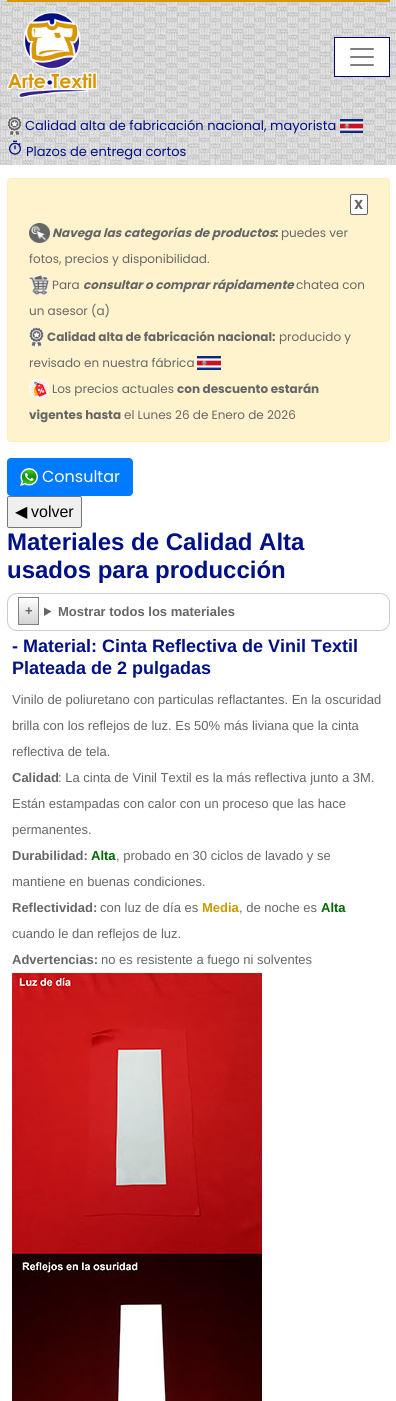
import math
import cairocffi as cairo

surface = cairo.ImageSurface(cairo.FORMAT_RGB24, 396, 1401)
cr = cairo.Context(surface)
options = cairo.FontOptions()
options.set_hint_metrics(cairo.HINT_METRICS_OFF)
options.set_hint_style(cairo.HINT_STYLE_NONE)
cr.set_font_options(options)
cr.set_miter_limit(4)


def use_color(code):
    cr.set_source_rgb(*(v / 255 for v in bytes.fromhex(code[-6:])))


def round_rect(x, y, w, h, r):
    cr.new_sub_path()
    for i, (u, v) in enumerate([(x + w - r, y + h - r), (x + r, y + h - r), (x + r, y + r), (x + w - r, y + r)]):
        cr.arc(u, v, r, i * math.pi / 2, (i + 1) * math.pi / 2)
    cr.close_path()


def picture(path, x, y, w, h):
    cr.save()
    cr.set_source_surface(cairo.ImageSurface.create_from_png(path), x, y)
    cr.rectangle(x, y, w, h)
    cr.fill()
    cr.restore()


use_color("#ffffff")
cr.paint()
picture("img1.png", 0, 0, 396, 165)
use_color("#d89600")
cr.rectangle(7, 0, 383, 2)
cr.fill()
picture("img2.png", 7, 12, 90, 86)
use_color("#ffffff")
cr.rectangle(334.5, 37.5, 55, 39)
cr.fill_preserve()
use_color("#000066")
cr.set_line_width(1)
cr.stroke()
picture("img3.png", 350, 48, 24, 18)
picture("img4.png", 7, 116, 15, 20)
cr.select_font_face("Poppins")
cr.set_font_size(13)
use_color("#001085")
cr.move_to(25, 130)
cr.show_text("Calidad alta de fabricación nacional, mayorista")
picture("img5.png", 340, 119, 23, 14)
picture("img6.png", 9, 140, 12, 15)
cr.move_to(26, 156)
cr.show_text("Plazos de entrega cortos")
use_color("#fff3cd")
round_rect(7.5, 178.5, 382, 263, 3.5)
cr.fill_preserve()
use_color("#ffeeba")
cr.stroke()
use_color("#ffffff")
round_rect(350.5, 194.5, 17, 20, 1.5)
cr.fill_preserve()
use_color("#666666")
cr.stroke()
cr.select_font_face("Poppins", cairo.FONT_SLANT_NORMAL, cairo.FONT_WEIGHT_BOLD)
cr.move_to(354, 209)
cr.show_text("X")
picture("img7.png", 29, 223, 21, 20)
cr.select_font_face("Poppins", cairo.FONT_SLANT_ITALIC, cairo.FONT_WEIGHT_BOLD)
cr.set_font_size(12)
cr.move_to(52, 237)
cr.show_text("Navega las categorías de productos")
cr.select_font_face("Poppins")
cr.move_to(281, 237)
cr.show_text("puedes ver")
cr.select_font_face("Poppins", cairo.FONT_SLANT_NORMAL, cairo.FONT_WEIGHT_BOLD)
cr.move_to(275, 237)
cr.show_text(":")
cr.select_font_face("Poppins")
cr.move_to(29, 263)
cr.show_text("fotos, precios y disponibilidad.")
picture("img8.png", 29, 275, 20, 20)
cr.move_to(52, 289)
cr.show_text("Para")
cr.select_font_face("Poppins", cairo.FONT_SLANT_ITALIC, cairo.FONT_WEIGHT_BOLD)
cr.move_to(83, 289)
cr.show_text("consultar o comprar rápidamente")
cr.select_font_face("Poppins")
cr.move_to(296, 289)
cr.show_text("chatea con")
cr.move_to(29, 315)
cr.show_text("un asesor (a)")
picture("img9.png", 29, 327, 15, 20)
cr.select_font_face("Poppins", cairo.FONT_SLANT_NORMAL, cairo.FONT_WEIGHT_BOLD)
cr.move_to(47, 341)
cr.show_text("Calidad alta de fabricación nacional:")
cr.select_font_face("Poppins")
cr.move_to(279, 341)
cr.show_text("producido y")
cr.move_to(29, 367)
cr.show_text("revisado en nuestra fábrica")
picture("img10.png", 197, 356, 24, 14)
picture("img11.png", 29, 379, 20, 20)
cr.move_to(52, 393)
cr.show_text("Los precios actuales")
cr.select_font_face("Poppins", cairo.FONT_SLANT_NORMAL, cairo.FONT_WEIGHT_BOLD)
cr.move_to(177, 393)
cr.show_text("con descuento estarán")
cr.move_to(29, 419)
cr.show_text("vigentes hasta")
cr.select_font_face("Poppins")
cr.move_to(124, 419)
cr.show_text("el Lunes 26 de Enero de 2026")
use_color("#007bff")
round_rect(7.5, 458.5, 125, 37, 3.5)
cr.fill_preserve()
cr.stroke()
picture("img12.png", 20, 468, 18, 18)
cr.set_font_size(16)
use_color("#ffffff")
cr.move_to(42, 482)
cr.show_text("Consultar")
use_color("#efefef")
round_rect(7.5, 496.5, 74, 31, 1.5)
cr.fill_preserve()
use_color("#767676")
cr.stroke()
cr.select_font_face("DejaVu Sans")
use_color("#000000")
cr.move_to(15, 517)
cr.show_text("◀")
cr.select_font_face("Liberation Sans")
cr.move_to(31, 517)
cr.show_text("volver")
cr.select_font_face("Liberation Sans", cairo.FONT_SLANT_NORMAL, cairo.FONT_WEIGHT_BOLD)
cr.set_font_size(24)
use_color("#001085")
cr.move_to(7, 550)
cr.show_text("Materiales de Calidad Alta")
cr.move_to(7, 578)
cr.show_text("usados para producción")
round_rect(7.5, 593.5, 382, 37, 9.5)
use_color("#cccccc")
cr.stroke()
gradient = cairo.LinearGradient(29, 598, 29, 624)
gradient.add_color_stop_rgba(0, 1, 1, 1, 1)
gradient.add_color_stop_rgba(1, 0.827, 0.827, 0.827, 1)
cr.set_source(gradient)
cr.rectangle(19, 599, 19, 25)
cr.fill()
cr.rectangle(18.5, 597.5, 20, 27)
use_color("#808080")
cr.stroke()
cr.set_font_size(13)
use_color("#666666")
cr.move_to(25, 615)
cr.show_text("+")
cr.new_path()
cr.move_to(44, 607.5)
cr.line_to(51.5, 611.5)
cr.line_to(44, 616)
cr.close_path()
cr.fill()
cr.move_to(58, 616)
cr.show_text("Mostrar todos los materiales")
cr.set_font_size(18)
use_color("#001085")
cr.move_to(12, 652)
cr.show_text("- Material: Cinta Reflectiva de Vinil Textil")
cr.move_to(12, 674)
cr.show_text("Plateada de 2 pulgadas")
cr.select_font_face("Liberation Sans")
cr.set_font_size(13)
use_color("#666666")
cr.move_to(12, 704)
cr.show_text("Vinilo de poliuretano con particulas reflactantes. En la oscuridad")
cr.move_to(12, 730)
cr.show_text("brilla con los reflejos de luz. Es 50% más liviana que la cinta")
cr.move_to(12, 756)
cr.show_text("reflectiva de tela.")
cr.select_font_face("Liberation Sans", cairo.FONT_SLANT_NORMAL, cairo.FONT_WEIGHT_BOLD)
cr.move_to(12, 782)
cr.show_text("Calidad")
cr.select_font_face("Liberation Sans")
cr.move_to(58, 782)
cr.show_text(": La cinta de Vinil Textil es la más reflectiva junto a 3M.")
cr.move_to(12, 808)
cr.show_text("Están estampadas con calor con un proceso que las hace")
cr.move_to(12, 834)
cr.show_text("permanentes.")
cr.select_font_face("Liberation Sans", cairo.FONT_SLANT_NORMAL, cairo.FONT_WEIGHT_BOLD)
cr.move_to(12, 860)
cr.show_text("Durabilidad:")
use_color("#006600")
cr.move_to(91, 860)
cr.show_text("Alta")
cr.select_font_face("Liberation Sans")
use_color("#666666")
cr.move_to(116, 860)
cr.show_text(", probado en 30 ciclos de lavado y se")
cr.move_to(12, 886)
cr.show_text("mantiene en buenas condiciones.")
cr.select_font_face("Liberation Sans", cairo.FONT_SLANT_NORMAL, cairo.FONT_WEIGHT_BOLD)
cr.move_to(12, 912)
cr.show_text("Reflectividad:")
cr.select_font_face("Liberation Sans")
cr.move_to(100, 912)
cr.show_text("con luz de día es")
cr.select_font_face("Liberation Sans", cairo.FONT_SLANT_NORMAL, cairo.FONT_WEIGHT_BOLD)
use_color("#cc9900")
cr.move_to(202, 912)
cr.show_text("Media")
cr.select_font_face("Liberation Sans")
use_color("#666666")
cr.move_to(239, 912)
cr.show_text(", de noche es")
cr.select_font_face("Liberation Sans", cairo.FONT_SLANT_NORMAL, cairo.FONT_WEIGHT_BOLD)
use_color("#006600")
cr.move_to(321, 912)
cr.show_text("Alta")
cr.select_font_face("Liberation Sans")
use_color("#666666")
cr.move_to(12, 938)
cr.show_text("cuando le dan reflejos de luz.")
cr.select_font_face("Liberation Sans", cairo.FONT_SLANT_NORMAL, cairo.FONT_WEIGHT_BOLD)
cr.move_to(12, 964)
cr.show_text("Advertencias:")
cr.select_font_face("Liberation Sans")
cr.move_to(101, 964)
cr.show_text("no es resistente a fuego ni solventes")
picture("img13.png", 12, 973, 250, 428)
surface.write_to_png("result.png")
